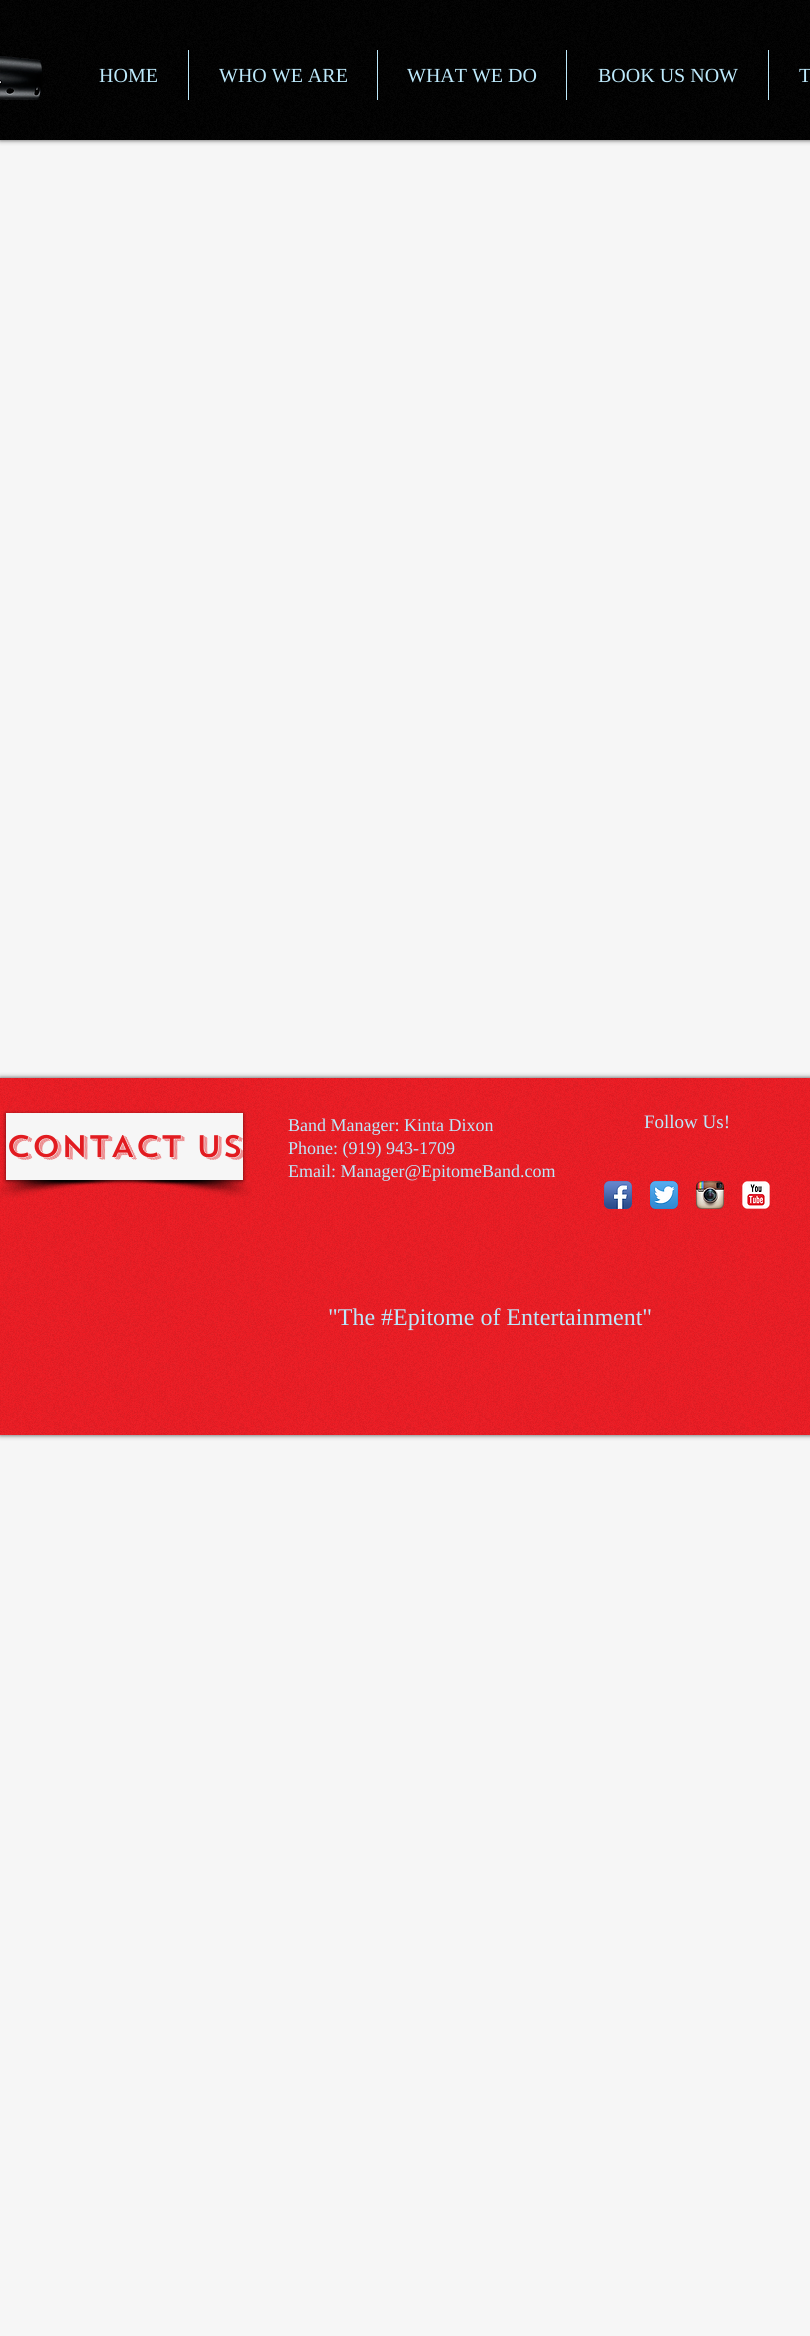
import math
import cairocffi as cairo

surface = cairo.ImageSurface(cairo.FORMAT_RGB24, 810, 2336)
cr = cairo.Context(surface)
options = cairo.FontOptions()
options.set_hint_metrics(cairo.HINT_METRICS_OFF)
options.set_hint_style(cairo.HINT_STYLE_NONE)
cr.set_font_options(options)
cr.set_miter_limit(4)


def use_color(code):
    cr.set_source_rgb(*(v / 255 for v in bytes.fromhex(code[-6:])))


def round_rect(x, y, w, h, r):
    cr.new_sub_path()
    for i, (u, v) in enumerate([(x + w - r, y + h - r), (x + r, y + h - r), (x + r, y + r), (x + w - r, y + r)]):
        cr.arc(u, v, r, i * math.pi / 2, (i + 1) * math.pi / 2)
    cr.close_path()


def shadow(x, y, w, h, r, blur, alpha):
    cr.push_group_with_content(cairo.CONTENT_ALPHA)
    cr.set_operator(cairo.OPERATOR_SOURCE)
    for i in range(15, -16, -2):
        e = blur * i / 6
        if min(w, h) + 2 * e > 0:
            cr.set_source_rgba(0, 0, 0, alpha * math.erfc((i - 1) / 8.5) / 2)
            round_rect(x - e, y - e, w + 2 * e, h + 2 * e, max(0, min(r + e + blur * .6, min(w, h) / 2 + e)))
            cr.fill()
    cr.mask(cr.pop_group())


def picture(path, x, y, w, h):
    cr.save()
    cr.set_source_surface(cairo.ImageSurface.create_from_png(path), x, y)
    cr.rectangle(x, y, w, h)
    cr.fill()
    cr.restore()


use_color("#f6f6f6")
cr.paint()
use_color("#000000")
shadow(0, 0, 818, 140, 0, 2.5, 0.7)
use_color("#000000")
cr.rectangle(0, 0, 810, 140)
cr.fill()
picture("img1.png", 0, 0, 810, 140)
picture("img2.png", 0, 56, 43, 44)
cr.select_font_face("Liberation Serif")
cr.set_font_size(20)
use_color("#bde9fb")
cr.move_to(99, 82)
cr.show_text("HOME")
cr.rectangle(188, 50, 1, 50)
cr.fill()
cr.move_to(219, 82)
cr.show_text("WHO WE ARE")
cr.rectangle(377, 50, 1, 50)
cr.fill()
cr.move_to(407, 82)
cr.show_text("WHAT WE DO")
cr.rectangle(566, 50, 1, 50)
cr.fill()
cr.move_to(598, 82)
cr.show_text("BOOK US NOW")
cr.rectangle(768, 50, 1, 50)
cr.fill()
cr.move_to(799, 82)
cr.show_text("T")
use_color("#000000")
shadow(0, 1078, 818, 357, 0, 2.5, 0.7)
use_color("#ed1c24")
cr.rectangle(0, 1078, 810, 357)
cr.fill()
picture("img3.png", 0, 1078, 810, 357)
picture("img4.png", 0, 1180, 151, 18)
picture("img5.png", 107, 1180, 145, 18)
use_color("#000000")
shadow(6, 1114, 237, 67, 0, 2, 0.6)
use_color("#f6f6f6")
cr.rectangle(6, 1113, 237, 67)
cr.fill()
cr.select_font_face("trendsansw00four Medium")
cr.set_font_size(31)
use_color("#e21c21")
cr.move_to(6, 1157)
cr.show_text("CONTACT US")
cr.select_font_face("Liberation Serif")
cr.set_font_size(18)
use_color("#bde9fb")
cr.move_to(288, 1131)
cr.show_text("Band Manager: Kinta Dixon")
cr.move_to(288, 1154)
cr.show_text("Phone: (919) 943-1709")
cr.move_to(288, 1177)
cr.show_text("Email: Manager@EpitomeBand.com")
cr.set_font_size(19)
cr.move_to(644, 1128)
cr.show_text("Follow Us!")
picture("img6.png", 604, 1181, 28, 28)
picture("img7.png", 650, 1181, 28, 28)
picture("img8.png", 696, 1181, 28, 28)
picture("img9.png", 742, 1181, 28, 28)
cr.set_font_size(24)
cr.move_to(328, 1325)
cr.show_text("\"The #Epitome of Entertainment\"")
surface.write_to_png("result.png")
